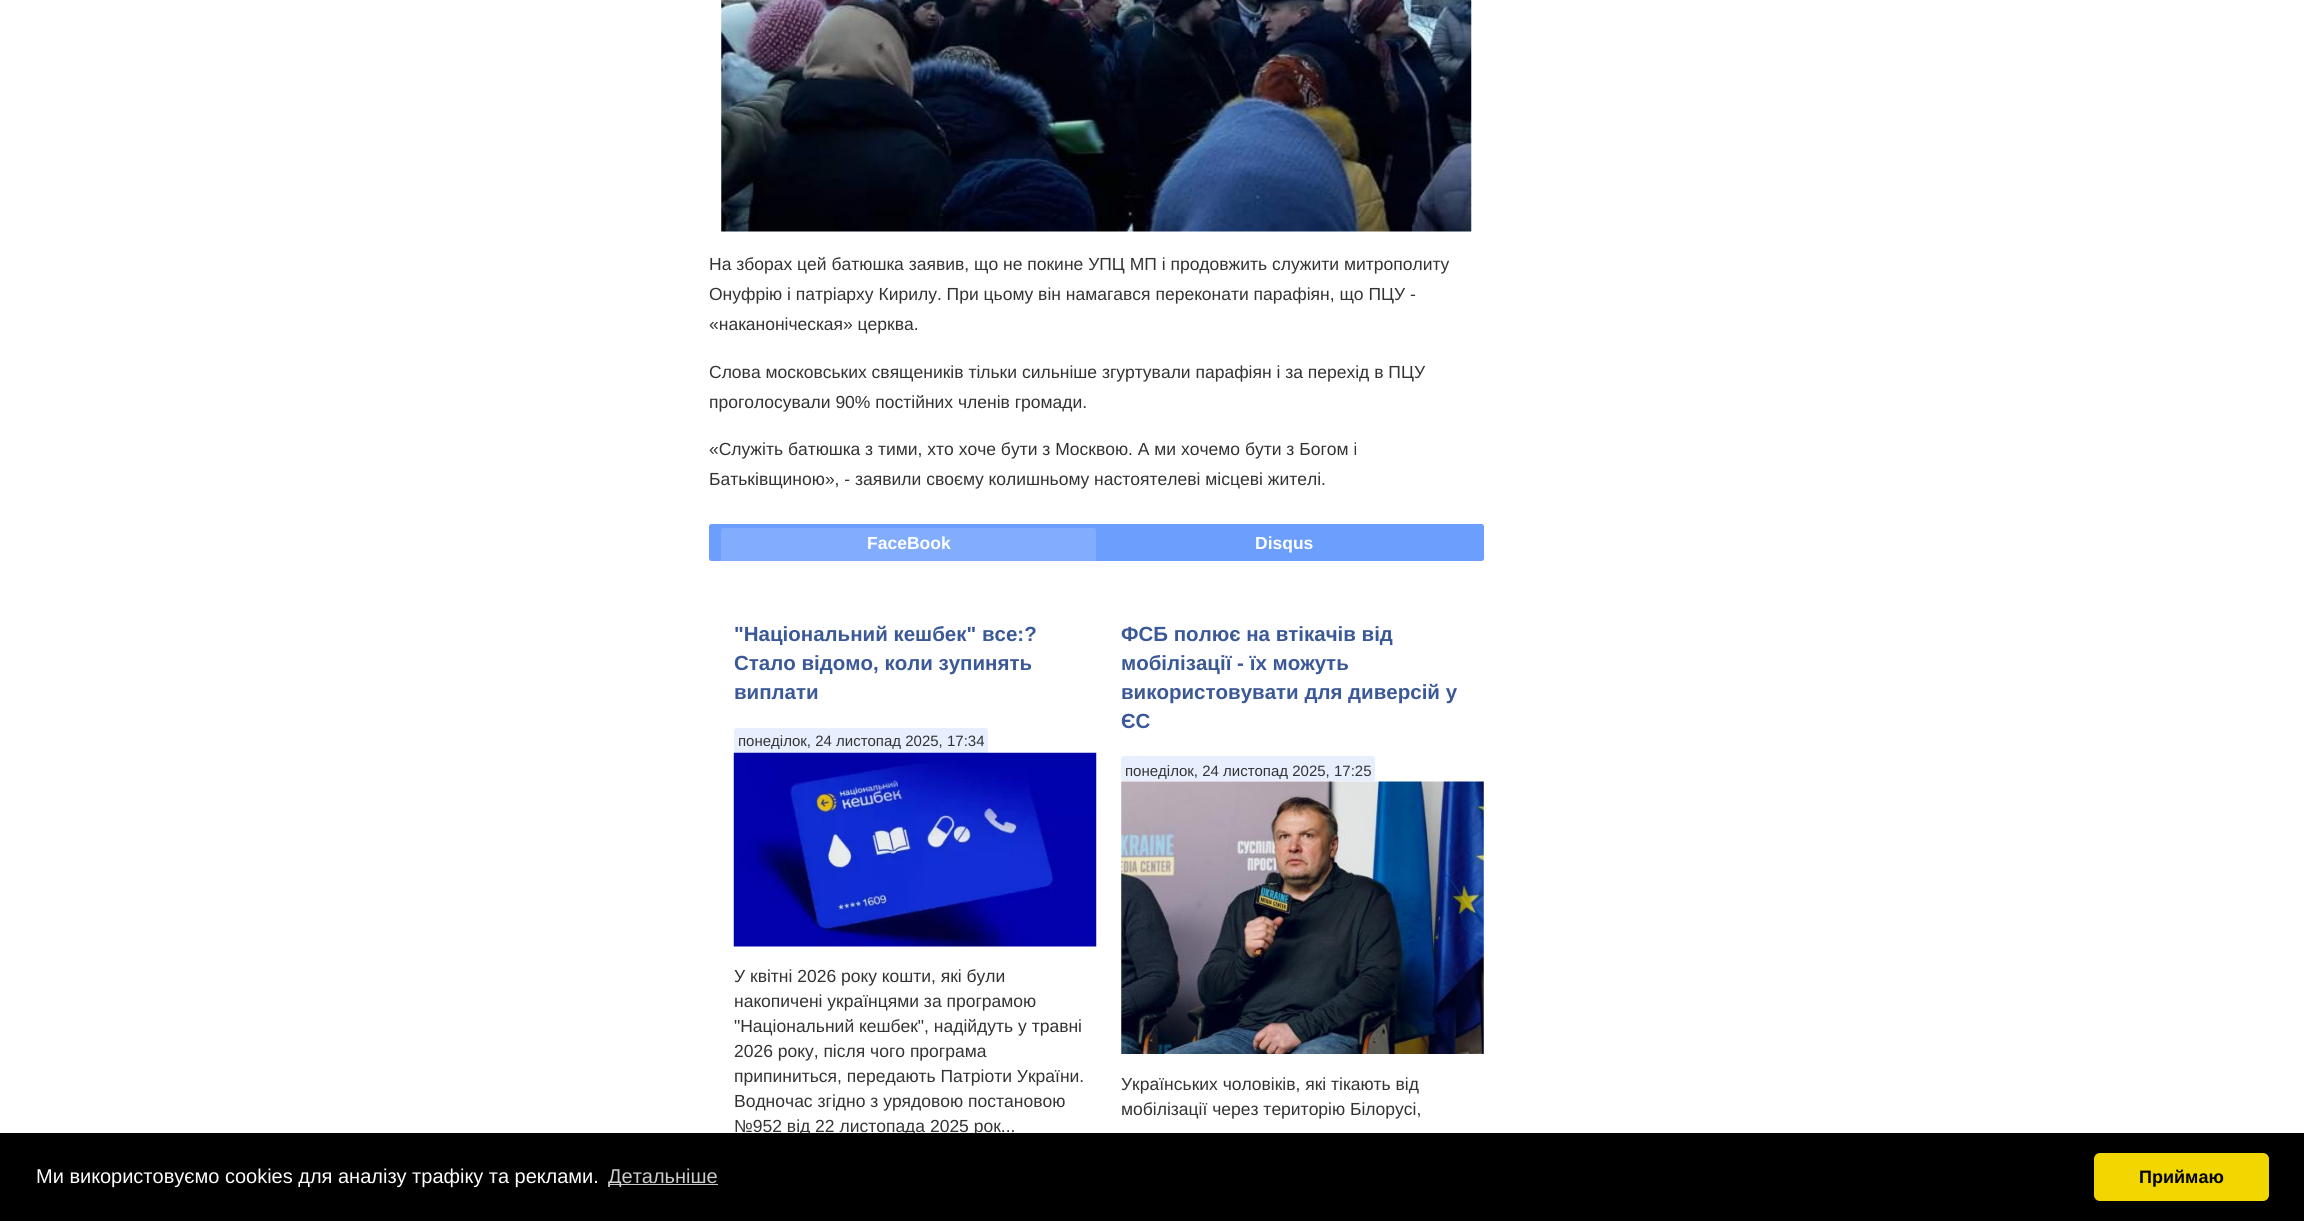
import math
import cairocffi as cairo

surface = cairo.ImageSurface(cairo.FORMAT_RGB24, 2304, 1221)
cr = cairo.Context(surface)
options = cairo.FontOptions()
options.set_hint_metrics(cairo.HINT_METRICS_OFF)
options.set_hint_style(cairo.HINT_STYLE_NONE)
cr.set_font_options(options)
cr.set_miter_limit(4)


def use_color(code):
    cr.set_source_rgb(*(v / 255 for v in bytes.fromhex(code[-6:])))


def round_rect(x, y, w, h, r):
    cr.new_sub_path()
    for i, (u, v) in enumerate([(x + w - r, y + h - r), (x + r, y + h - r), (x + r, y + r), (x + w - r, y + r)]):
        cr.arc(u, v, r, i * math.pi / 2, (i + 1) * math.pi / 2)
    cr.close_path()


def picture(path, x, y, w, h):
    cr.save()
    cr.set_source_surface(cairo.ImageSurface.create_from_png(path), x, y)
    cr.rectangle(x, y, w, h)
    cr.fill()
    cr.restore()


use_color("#ffffff")
cr.paint()
picture("img1.png", 721, 0, 751, 232)
cr.select_font_face("Liberation Sans")
cr.set_font_size(17.5)
use_color("#333333")
cr.move_to(709, 270)
cr.show_text("На зборах цей батюшка заявив, що не покине УПЦ МП і продовжить служити митрополиту")
cr.move_to(709, 300)
cr.show_text("Онуфрію і патріарху Кирилу. При цьому він намагався переконати парафіян, що ПЦУ -")
cr.move_to(709, 330)
cr.show_text("«наканоніческая» церква.")
cr.move_to(709, 378)
cr.show_text("Слова московських священиків тільки сильніше згуртували парафіян і за перехід в ПЦУ")
cr.move_to(709, 408)
cr.show_text("проголосували 90% постійних членів громади.")
cr.move_to(709, 455)
cr.show_text("«Служіть батюшка з тими, хто хоче бути з Москвою. А ми хочемо бути з Богом і")
cr.move_to(709, 485)
cr.show_text("Батьківщиною», - заявили своєму колишньому настоятелеві місцеві жителі.")
use_color("#6c9efe")
round_rect(709, 524, 775, 37, 2.5)
cr.fill()
use_color("#82adfe")
cr.new_path()
cr.move_to(723.5, 528)
cr.line_to(1093.5, 528)
cr.curve_to(1095, 528, 1096, 529, 1096, 530.5)
cr.line_to(1096, 561)
cr.line_to(721, 561)
cr.line_to(721, 530.5)
cr.curve_to(721, 529, 722, 528, 723.5, 528)
cr.close_path()
cr.fill()
cr.select_font_face("Liberation Sans", cairo.FONT_SLANT_NORMAL, cairo.FONT_WEIGHT_BOLD)
use_color("#ffffff")
cr.move_to(867, 549)
cr.show_text("FaceBook")
cr.move_to(1255, 549)
cr.show_text("Disqus")
cr.set_font_size(20.5)
use_color("#3b5998")
cr.move_to(734, 641)
cr.show_text("\"Національний кешбек\" все:?")
cr.move_to(734, 670)
cr.show_text("Стало відомо, коли зупинять")
cr.move_to(734, 699)
cr.show_text("виплати")
use_color("#e7efff")
round_rect(734, 728, 254, 25, 2.5)
cr.fill()
cr.select_font_face("Liberation Sans")
cr.set_font_size(15)
use_color("#333333")
cr.move_to(738, 746)
cr.show_text("понеділок, 24 листопад 2025, 17:34")
picture("img2.png", 733, 752, 364, 195)
cr.set_font_size(17.5)
cr.move_to(734, 982)
cr.show_text("У квітні 2026 року кошти, які були")
cr.move_to(734, 1007)
cr.show_text("накопичені українцями за програмою")
cr.move_to(734, 1032)
cr.show_text("\"Національний кешбек\", надійдуть у травні")
cr.move_to(734, 1057)
cr.show_text("2026 року, після чого програма")
cr.move_to(734, 1082)
cr.show_text("припиниться, передають Патріоти України.")
cr.move_to(734, 1107)
cr.show_text("Водночас згідно з урядовою постановою")
cr.move_to(734, 1132)
cr.show_text("№952 від 22 листопада 2025 рок...")
cr.select_font_face("Liberation Sans", cairo.FONT_SLANT_NORMAL, cairo.FONT_WEIGHT_BOLD)
cr.set_font_size(20.5)
use_color("#3b5998")
cr.move_to(1121, 641)
cr.show_text("ФСБ полює на втікачів від")
cr.move_to(1121, 670)
cr.show_text("мобілізації - їх можуть")
cr.move_to(1121, 699)
cr.show_text("використовувати для диверсій у")
cr.move_to(1121, 728)
cr.show_text("ЄС")
use_color("#e7efff")
round_rect(1121, 756, 254, 25, 2.5)
cr.fill()
cr.select_font_face("Liberation Sans")
cr.set_font_size(15)
use_color("#333333")
cr.move_to(1125, 776)
cr.show_text("понеділок, 24 листопад 2025, 17:25")
picture("img3.png", 1121, 781, 363, 273)
cr.set_font_size(17.5)
cr.move_to(1121, 1090)
cr.show_text("Українських чоловіків, які тікають від")
cr.move_to(1121, 1115)
cr.show_text("мобілізації через територію Білорусі,")
use_color("#000000")
cr.rectangle(0, 1133, 2304, 88)
cr.fill()
cr.set_font_size(20)
use_color("#ffffff")
cr.move_to(36, 1183)
cr.show_text("Ми використовуємо cookies для аналізу трафіку та реклами.")
use_color("#cccccc")
cr.rectangle(609, 1184, 109, 1)
cr.fill()
cr.move_to(608, 1183)
cr.show_text("Детальніше")
use_color("#f1d600")
round_rect(2094, 1153, 175, 48, 6)
cr.fill()
cr.select_font_face("Liberation Sans", cairo.FONT_SLANT_NORMAL, cairo.FONT_WEIGHT_BOLD)
cr.set_font_size(18)
use_color("#000000")
cr.move_to(2139, 1183)
cr.show_text("Приймаю")
surface.write_to_png("result.png")
